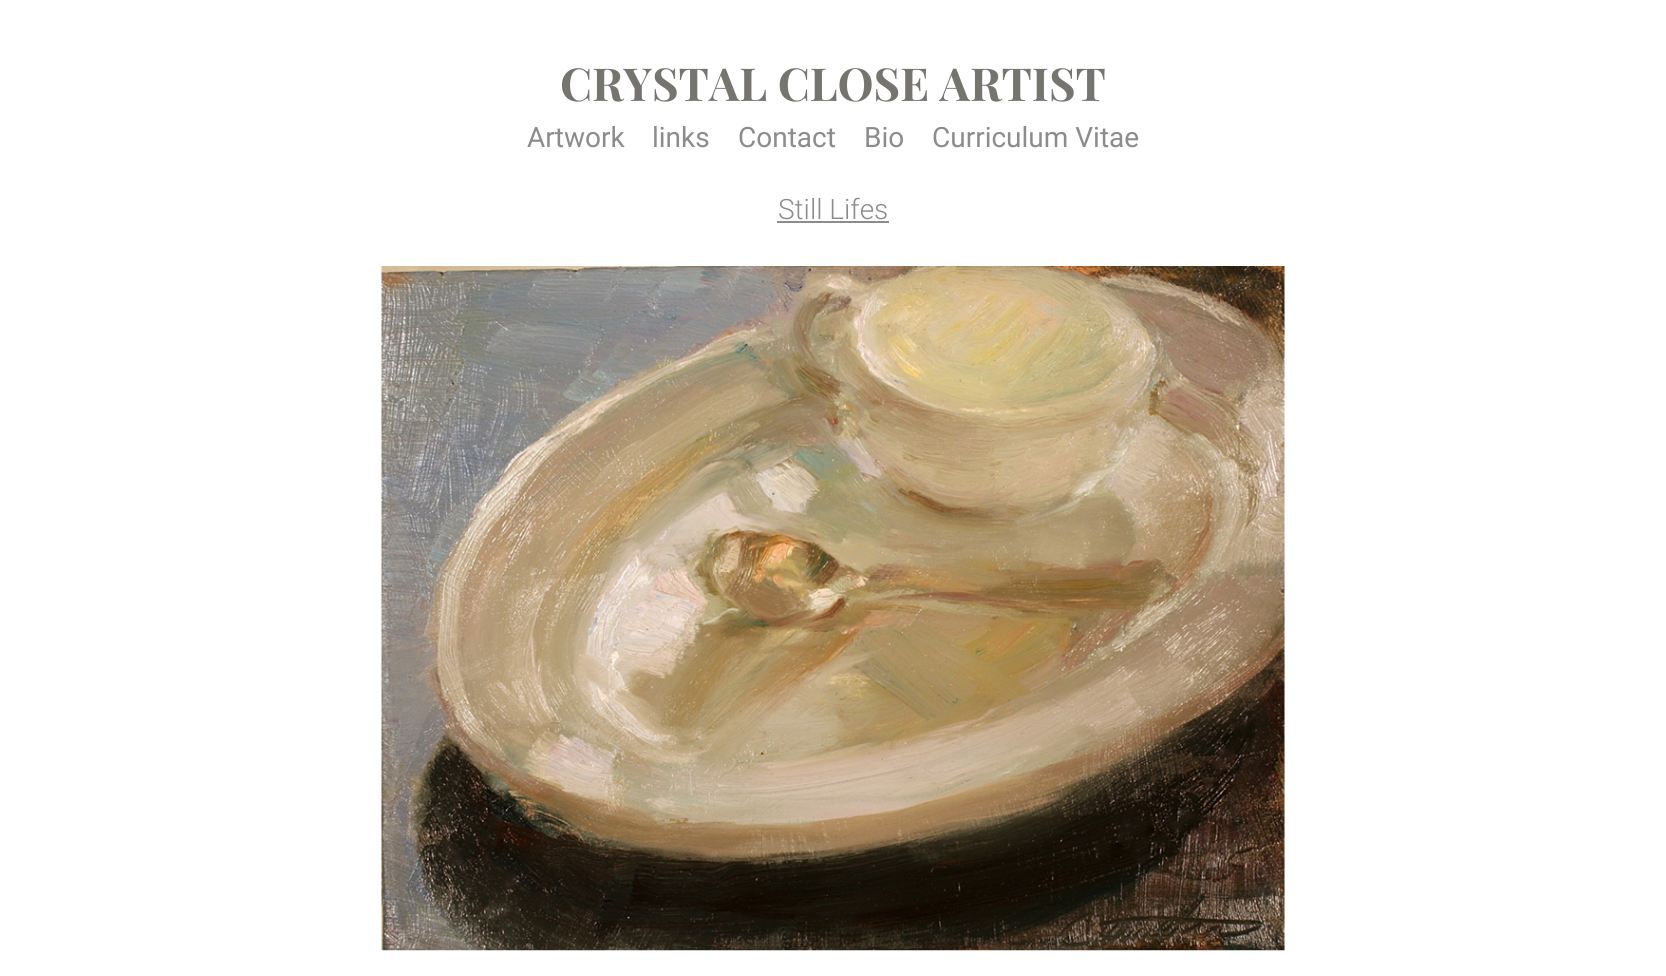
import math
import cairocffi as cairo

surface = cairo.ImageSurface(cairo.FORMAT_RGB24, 1666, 976)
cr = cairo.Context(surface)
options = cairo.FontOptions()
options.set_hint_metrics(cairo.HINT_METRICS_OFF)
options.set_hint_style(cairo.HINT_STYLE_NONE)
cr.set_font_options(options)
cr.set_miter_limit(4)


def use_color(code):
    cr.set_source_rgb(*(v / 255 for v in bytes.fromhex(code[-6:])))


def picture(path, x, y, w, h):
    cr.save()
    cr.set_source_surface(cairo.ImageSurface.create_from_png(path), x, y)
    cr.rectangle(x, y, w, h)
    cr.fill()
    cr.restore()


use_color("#ffffff")
cr.paint()
cr.select_font_face("Playfair Display", cairo.FONT_SLANT_NORMAL, cairo.FONT_WEIGHT_BOLD)
cr.set_font_size(45.5)
use_color("#76746f")
cr.move_to(560, 101)
cr.show_text("CRYSTAL CLOSE ARTIST")
cr.select_font_face("Roboto")
cr.set_font_size(28)
use_color("#8c8c8c")
cr.move_to(527, 147)
cr.show_text("Artwork")
cr.move_to(652, 147)
cr.show_text("links")
cr.move_to(738, 147)
cr.show_text("Contact")
cr.move_to(864, 147)
cr.show_text("Bio")
cr.move_to(932, 147)
cr.show_text("Curriculum Vitae")
cr.select_font_face("Roboto Light")
cr.move_to(778, 219)
cr.show_text("Still Lifes")
cr.rectangle(777, 221, 112, 2)
cr.fill()
picture("img1.png", 381, 266, 904, 685)
surface.write_to_png("result.png")
